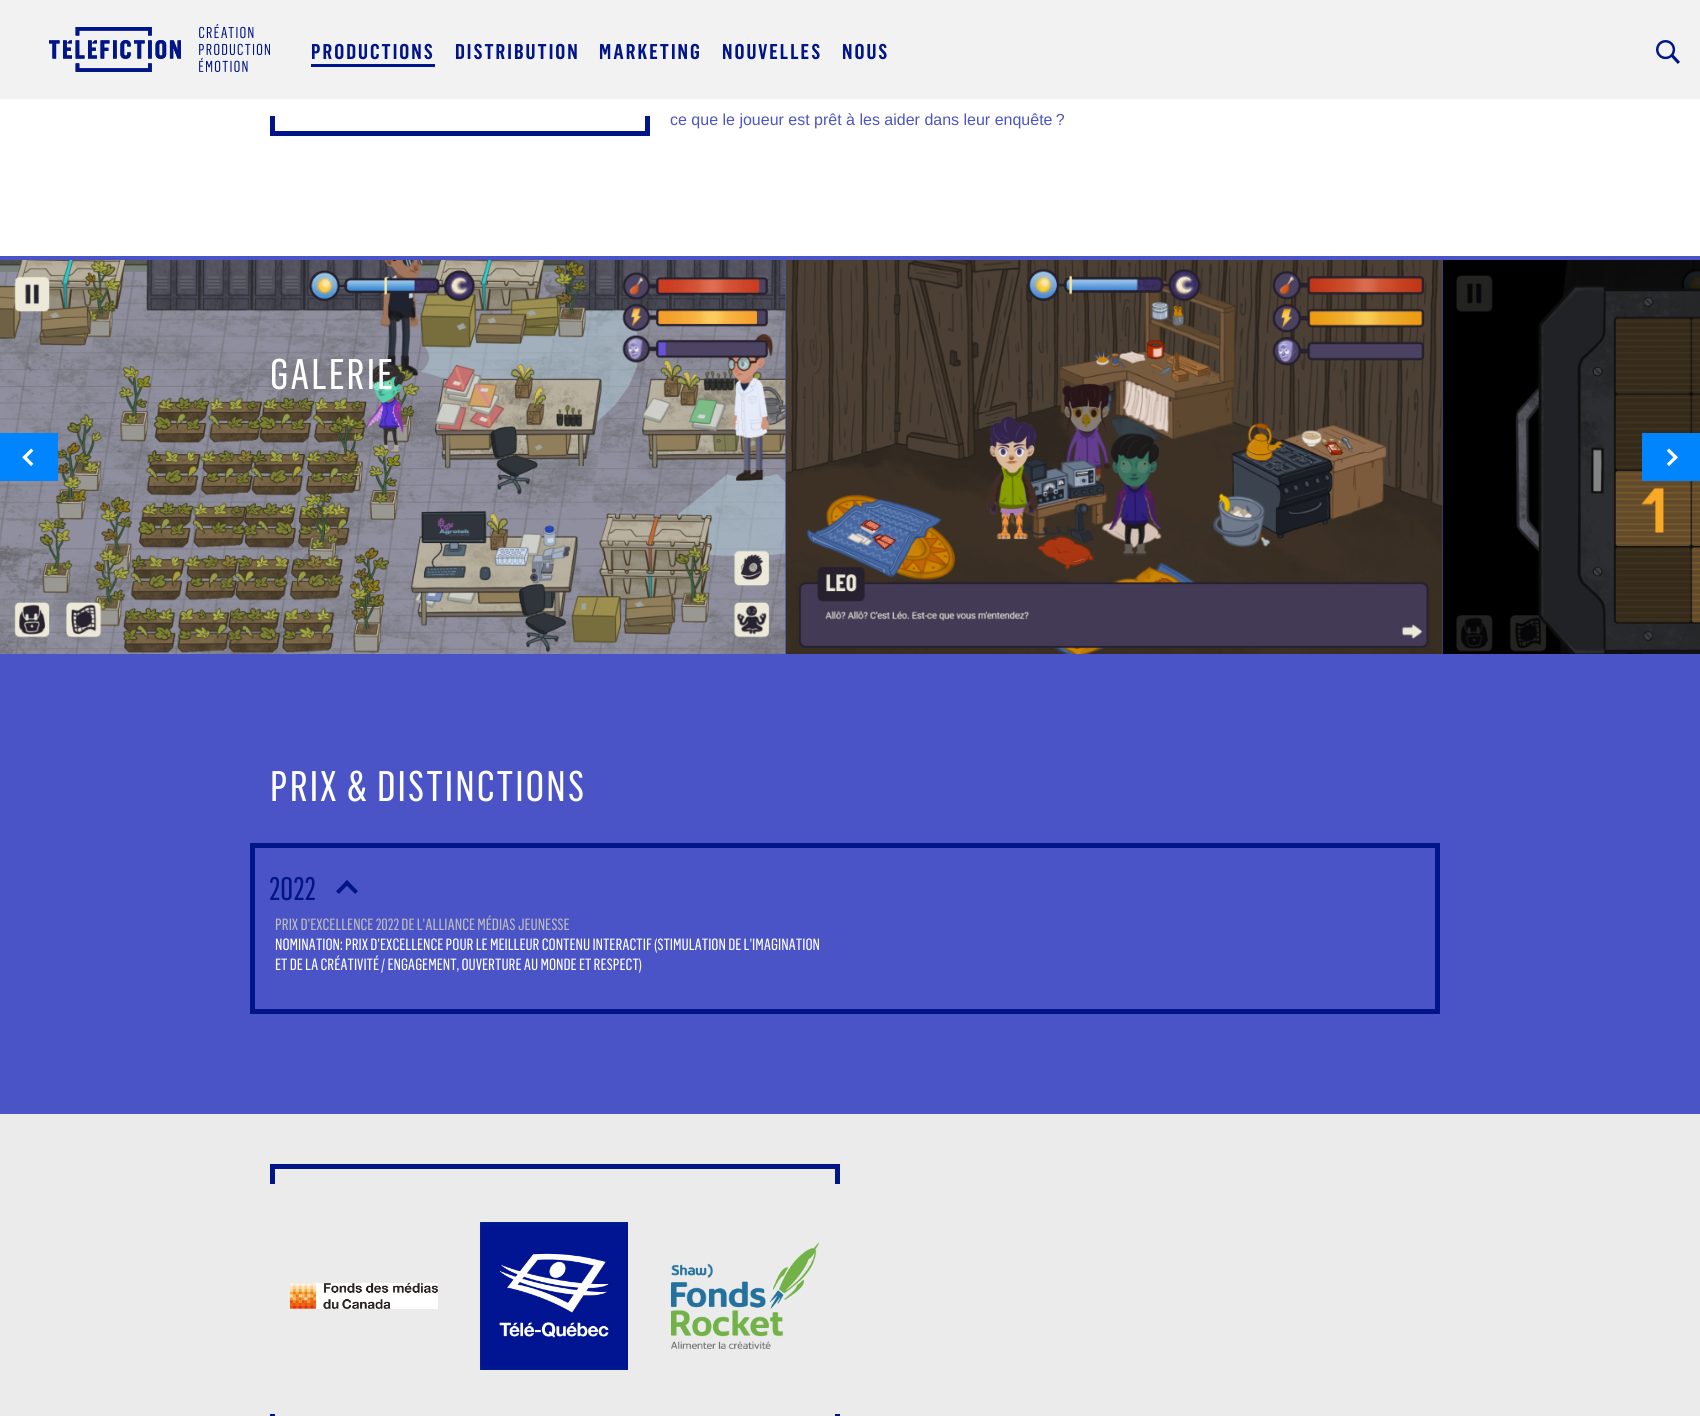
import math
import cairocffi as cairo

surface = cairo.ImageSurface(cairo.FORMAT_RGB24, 1700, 1416)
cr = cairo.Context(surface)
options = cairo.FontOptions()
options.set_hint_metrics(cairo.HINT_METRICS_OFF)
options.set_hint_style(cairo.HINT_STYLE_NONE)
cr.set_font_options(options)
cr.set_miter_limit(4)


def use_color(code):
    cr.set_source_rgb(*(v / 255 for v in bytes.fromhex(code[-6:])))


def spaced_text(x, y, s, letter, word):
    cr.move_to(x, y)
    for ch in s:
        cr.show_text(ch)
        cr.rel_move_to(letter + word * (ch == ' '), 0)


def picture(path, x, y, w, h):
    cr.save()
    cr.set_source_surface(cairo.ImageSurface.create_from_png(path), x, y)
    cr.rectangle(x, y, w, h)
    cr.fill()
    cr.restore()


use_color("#ffffff")
cr.paint()
use_color("#f2f2f2")
cr.rectangle(0, 0, 1700, 99)
cr.fill()
picture("img1.png", 49, 24, 221, 48)
cr.select_font_face("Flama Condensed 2 SemiBold")
cr.set_font_size(21)
use_color("#001588")
spaced_text(311, 59, "PRODUCTIONS", 2, 0)
cr.rectangle(311, 64, 124, 3)
cr.fill()
spaced_text(455, 59, "DISTRIBUTION", 2, 0)
spaced_text(599, 59, "MARKETING", 2, 0)
spaced_text(722, 59, "NOUVELLES", 2, 0)
spaced_text(842, 59, "NOUS", 2, 0)
picture("img2.png", 1656, 40, 24, 24)
cr.rectangle(645, 116, 5, 20)
cr.fill()
cr.rectangle(270, 131, 380, 5)
cr.fill()
cr.rectangle(270, 116, 5, 20)
cr.fill()
cr.select_font_face("Liberation Sans")
cr.set_font_size(16)
use_color("#4b54c6")
cr.move_to(670, 125)
cr.show_text("ce que le joueur est prêt à les aider dans leur enquête ?")
cr.rectangle(0, 256, 1700, 858)
cr.fill()
picture("img3.png", 0, 260, 786, 394)
picture("img4.png", 785, 260, 658, 394)
picture("img5.png", 1442, 260, 258, 394)
cr.select_font_face("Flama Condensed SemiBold")
cr.set_font_size(42)
use_color("#ffffff")
spaced_text(270, 389, "GALERIE", 2, 0)
use_color("#0085ff")
cr.rectangle(0, 433, 58, 48)
cr.fill()
picture("img6.png", 22, 448, 12, 19)
cr.rectangle(1642, 433, 58, 48)
cr.fill()
picture("img7.png", 1666, 448, 12, 19)
use_color("#ffffff")
spaced_text(270, 801, "PRIX & DISTINCTIONS", 2, 0)
use_color("#001588")
cr.rectangle(250, 843, 1190, 5)
cr.fill()
cr.rectangle(1435, 843, 5, 171)
cr.fill()
cr.rectangle(250, 843, 5, 151)
cr.fill()
cr.set_font_size(32)
cr.move_to(269, 900)
cr.show_text("2022")
picture("img8.png", 336, 880, 22, 14)
cr.set_font_size(16)
use_color("#bcbcbc")
cr.move_to(275, 930)
cr.show_text("PRIX D’EXCELLENCE 2022 DE L’ALLIANCE MÉDIAS JEUNESSE")
use_color("#ffffff")
cr.move_to(275, 950)
cr.show_text("NOMINATION: PRIX D’EXCELLENCE POUR LE MEILLEUR CONTENU INTERACTIF (STIMULATION DE L’IMAGINATION")
cr.move_to(275, 970)
cr.show_text("ET DE LA CRÉATIVITÉ / ENGAGEMENT, OUVERTURE AU MONDE ET RESPECT)")
use_color("#001588")
cr.rectangle(250, 1009, 1190, 5)
cr.fill()
cr.rectangle(250, 994, 5, 20)
cr.fill()
use_color("#ebebeb")
cr.rectangle(0, 1114, 1700, 302)
cr.fill()
use_color("#001588")
cr.rectangle(270, 1164, 570, 5)
cr.fill()
cr.rectangle(835, 1164, 5, 20)
cr.fill()
cr.rectangle(270, 1164, 5, 20)
cr.fill()
picture("img9.png", 290, 1283, 148, 26)
picture("img10.png", 480, 1222, 148, 148)
picture("img11.png", 671, 1243, 148, 106)
cr.rectangle(835, 1414, 5, 2)
cr.fill()
cr.rectangle(270, 1414, 5, 2)
cr.fill()
surface.write_to_png("result.png")
